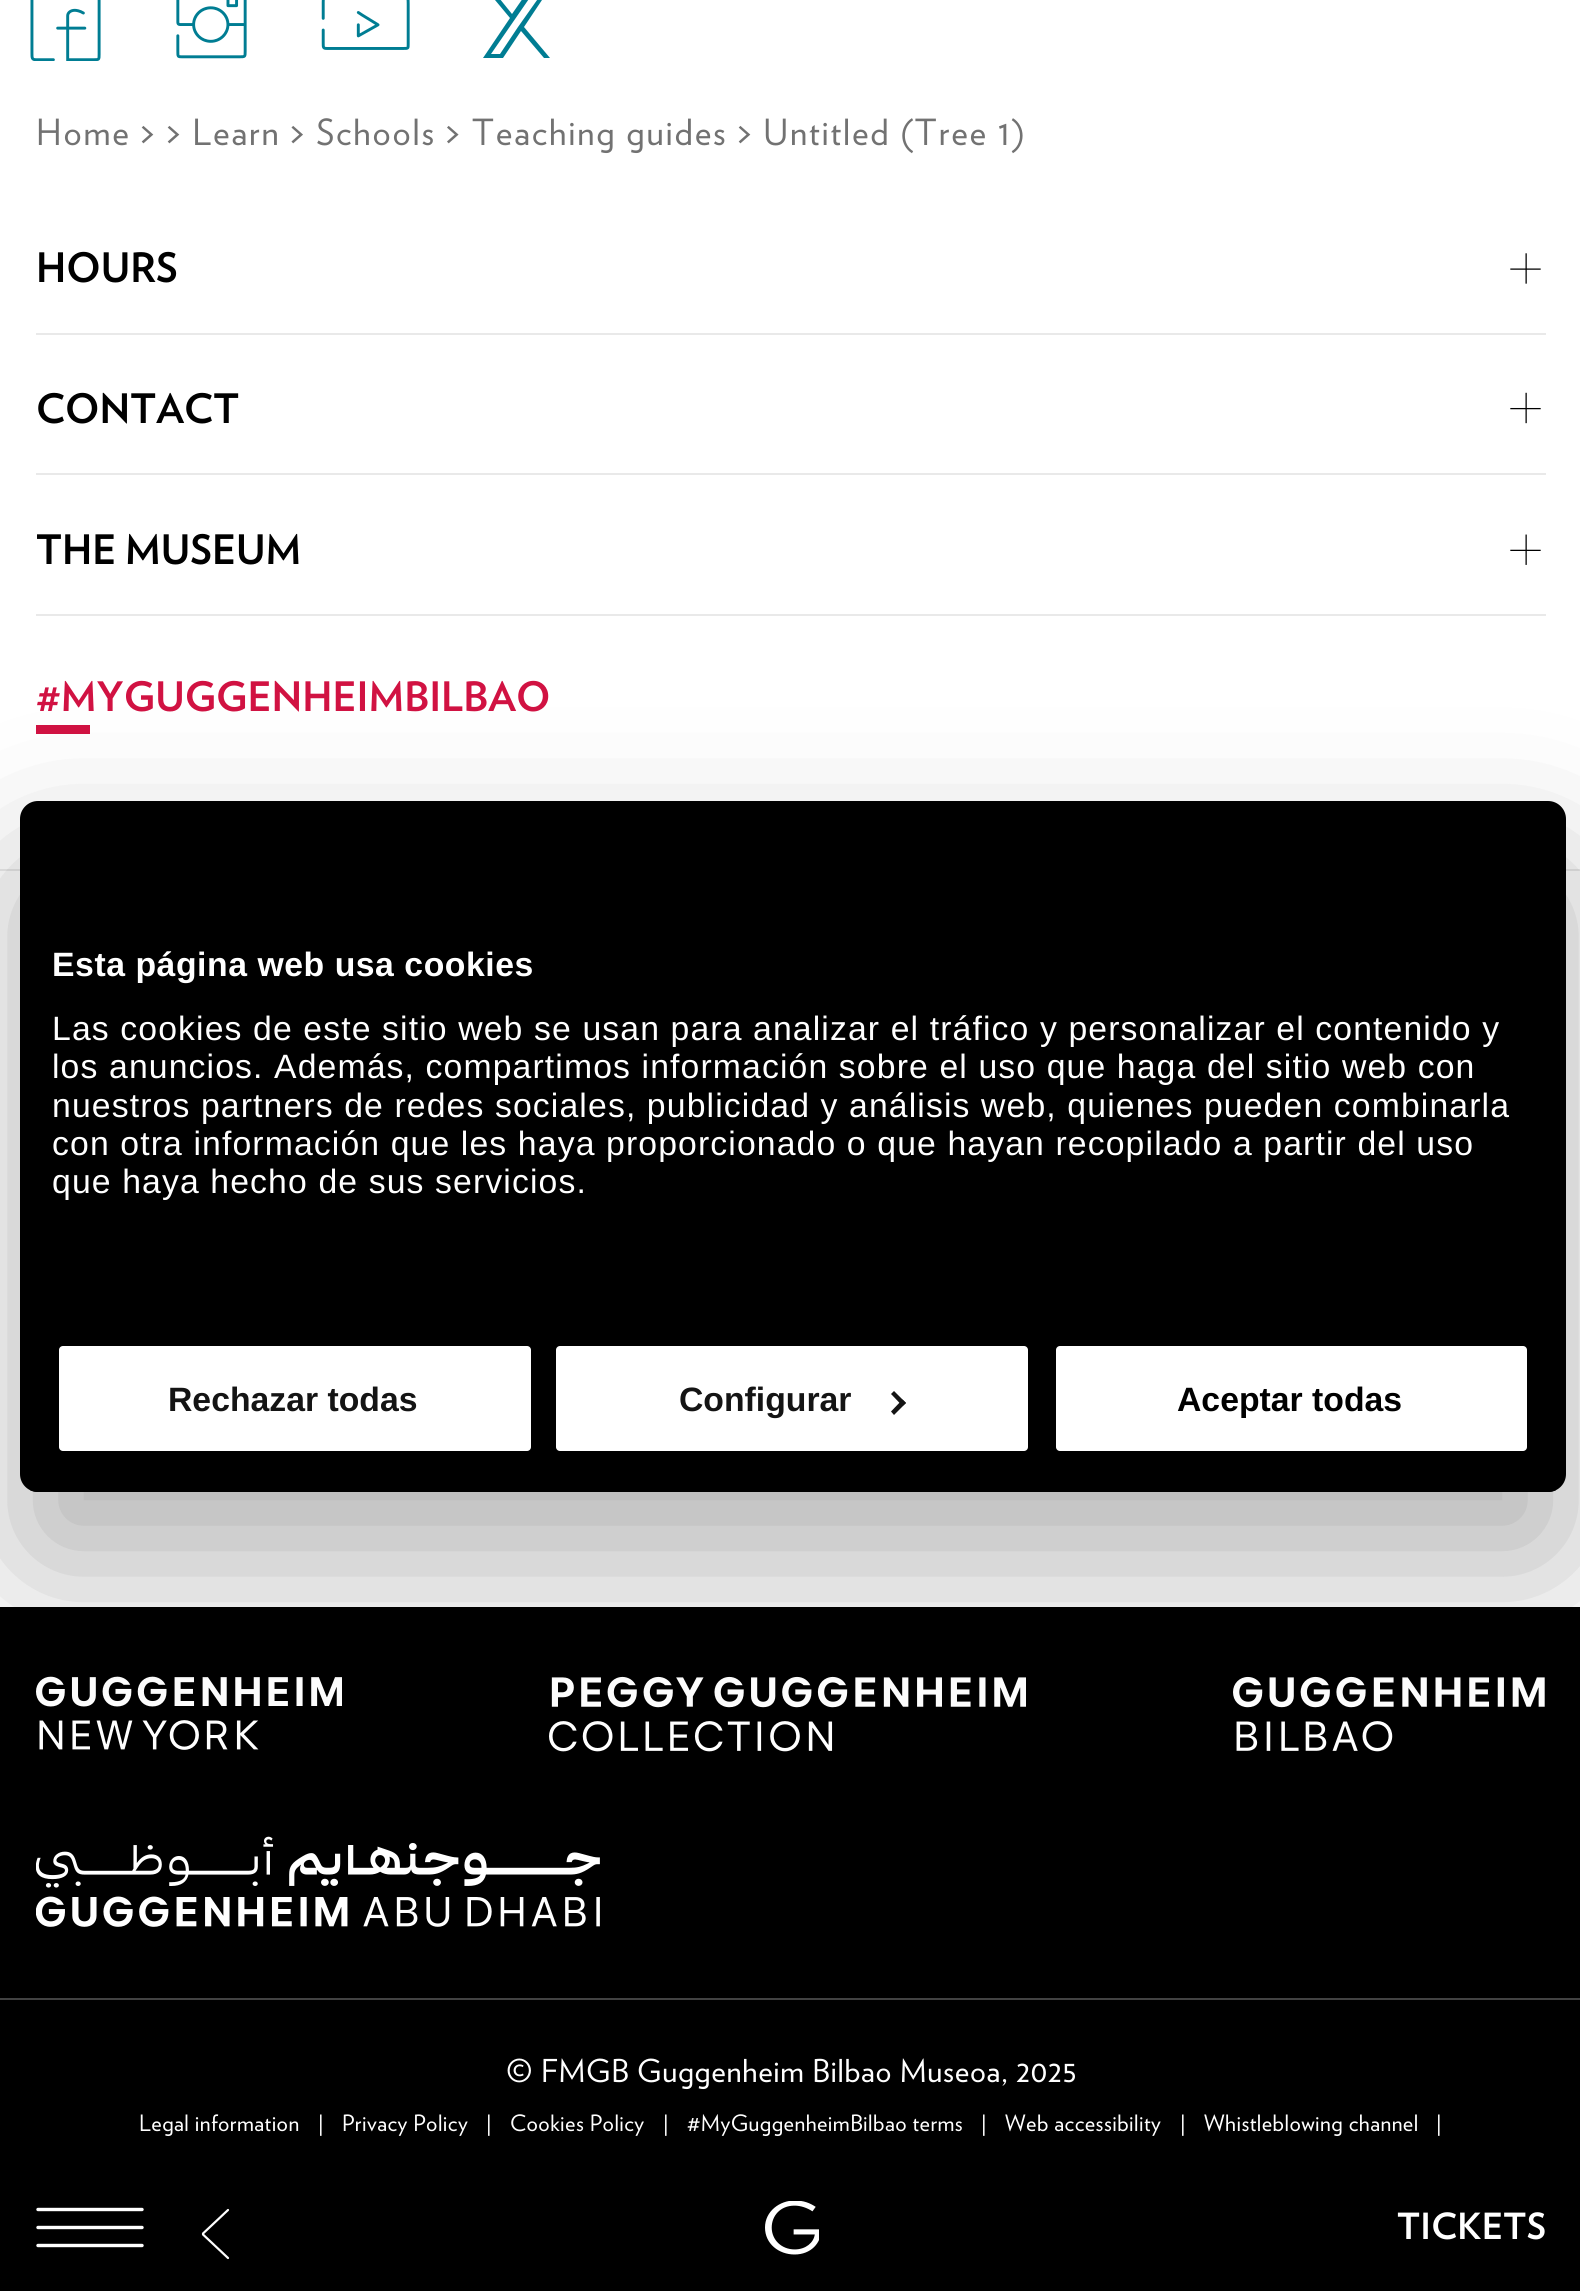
import math
import cairocffi as cairo

surface = cairo.ImageSurface(cairo.FORMAT_RGB24, 1580, 2291)
cr = cairo.Context(surface)
options = cairo.FontOptions()
options.set_hint_metrics(cairo.HINT_METRICS_OFF)
options.set_hint_style(cairo.HINT_STYLE_NONE)
cr.set_font_options(options)
cr.set_miter_limit(4)


def use_color(code):
    cr.set_source_rgb(*(v / 255 for v in bytes.fromhex(code[-6:])))


def spaced_text(x, y, s, letter, word):
    cr.move_to(x, y)
    for ch in s:
        cr.show_text(ch)
        cr.rel_move_to(letter + word * (ch == ' '), 0)


def round_rect(x, y, w, h, r):
    cr.new_sub_path()
    for i, (u, v) in enumerate([(x + w - r, y + h - r), (x + r, y + h - r), (x + r, y + r), (x + w - r, y + r)]):
        cr.arc(u, v, r, i * math.pi / 2, (i + 1) * math.pi / 2)
    cr.close_path()


def shadow(x, y, w, h, r, blur, alpha):
    cr.push_group_with_content(cairo.CONTENT_ALPHA)
    cr.set_operator(cairo.OPERATOR_SOURCE)
    for i in range(15, -16, -2):
        e = blur * i / 6
        if min(w, h) + 2 * e > 0:
            cr.set_source_rgba(0, 0, 0, alpha * math.erfc((i - 1) / 8.5) / 2)
            round_rect(x - e, y - e, w + 2 * e, h + 2 * e, max(0, min(r + e + blur * .6, min(w, h) / 2 + e)))
            cr.fill()
    cr.mask(cr.pop_group())


def picture(path, x, y, w, h):
    cr.save()
    cr.set_source_surface(cairo.ImageSurface.create_from_png(path), x, y)
    cr.rectangle(x, y, w, h)
    cr.fill()
    cr.restore()


use_color("#ffffff")
cr.paint()
picture("img1.png", 30, 0, 71, 61)
picture("img2.png", 176, 0, 71, 59)
picture("img3.png", 321, 0, 89, 50)
use_color("#007d93")
cr.new_path()
cr.move_to(510, 18)
cr.line_to(485, -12)
cr.line_to(491, -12)
cr.line_to(512, 14)
cr.line_to(530, -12)
cr.line_to(550, -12)
cr.line_to(524, 27)
cr.line_to(550, 58)
cr.line_to(544, 58)
cr.line_to(521, 31)
cr.line_to(503, 58)
cr.line_to(483, 58)
cr.close_path()
cr.move_to(518, 27)
cr.line_to(542, -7)
cr.line_to(533, -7)
cr.line_to(491, 54)
cr.line_to(500, 54)
cr.close_path()
cr.fill()
cr.select_font_face("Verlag")
cr.set_font_size(36)
use_color("#727272")
spaced_text(36, 145, "Home > > Learn > Schools > Teaching guides > Untitled (Tree 1)", 1.8, 0)
use_color("#e9e9e9")
cr.rectangle(36, 333, 1510, 2)
cr.fill()
cr.select_font_face("Verlag", cairo.FONT_SLANT_NORMAL, cairo.FONT_WEIGHT_BOLD)
cr.set_font_size(40.5)
use_color("#000000")
cr.move_to(36, 282)
cr.show_text("HOURS")
picture("img4.png", 1510, 253, 31, 31)
use_color("#e9e9e9")
cr.rectangle(36, 473, 1510, 2)
cr.fill()
use_color("#000000")
cr.move_to(36, 423)
cr.show_text("CONTACT")
picture("img5.png", 1510, 392, 31, 32)
use_color("#e9e9e9")
cr.rectangle(36, 614, 1510, 2)
cr.fill()
use_color("#000000")
cr.move_to(36, 564)
cr.show_text("THE MUSEUM")
picture("img6.png", 1510, 534, 31, 31)
use_color("#d11242")
cr.move_to(36, 711)
cr.show_text("#MYGUGGENHEIMBILBAO")
cr.rectangle(36, 725, 54, 9)
cr.fill()
use_color("#e9e9e9")
cr.rectangle(0, 869, 1580, 2)
cr.fill()
use_color("#000000")
cr.rectangle(0, 1607, 1580, 684)
cr.fill()
use_color("#424242")
cr.rectangle(0, 1998, 1580, 2)
cr.fill()
picture("img7.png", 36, 1676, 306, 74)
picture("img8.png", 549, 1676, 477, 76)
picture("img9.png", 1233, 1676, 312, 76)
picture("img10.png", 36, 1836, 564, 91)
cr.select_font_face("Verlag")
cr.set_font_size(31.5)
use_color("#ffffff")
spaced_text(506, 2082, "© FMGB Guggenheim Bilbao Museoa, 2025", 0.65, 0)
cr.set_font_size(22.5)
spaced_text(139, 2131, "Legal information", 0.45, 0)
spaced_text(318, 2131, "|", 0.45, 0)
spaced_text(342, 2131, "Privacy Policy", 0.45, 0)
spaced_text(486, 2131, "|", 0.45, 0)
spaced_text(510, 2131, "Cookies Policy", 0.45, 0)
spaced_text(663, 2131, "|", 0.45, 0)
spaced_text(687, 2131, "#MyGuggenheimBilbao terms", 0.45, 0)
spaced_text(981, 2131, "|", 0.45, 0)
spaced_text(1005, 2131, "Web accessibility", 0.45, 0)
spaced_text(1180, 2131, "|", 0.45, 0)
spaced_text(1204, 2131, "Whistleblowing channel", 0.45, 0)
spaced_text(1436, 2131, "|", 0.45, 0)
cr.new_path()
cr.move_to(38, 2209.5)
cr.line_to(142, 2209.5)
cr.move_to(38, 2245.5)
cr.line_to(142, 2245.5)
cr.move_to(38, 2227.5)
cr.line_to(142, 2227.5)
cr.set_line_width(3.4)
cr.set_line_cap(cairo.LINE_CAP_ROUND)
cr.stroke()
cr.new_path()
cr.move_to(228, 2210)
cr.line_to(203, 2233.5)
cr.move_to(228, 2258)
cr.line_to(203, 2234.5)
cr.set_line_width(2.2)
cr.stroke()
picture("img11.png", 765, 2201, 54, 54)
cr.select_font_face("Verlag", cairo.FONT_SLANT_NORMAL, cairo.FONT_WEIGHT_BOLD)
cr.set_font_size(36)
spaced_text(1397, 2239, "TICKETS", 0.25, 0)
use_color("#000000")
shadow(20, 873, 1546, 691, 18, 76.5, 0.3)
use_color("#000000")
round_rect(20, 801, 1546, 691, 18)
cr.fill()
cr.select_font_face("Liberation Sans", cairo.FONT_SLANT_NORMAL, cairo.FONT_WEIGHT_BOLD)
cr.set_font_size(33.75)
use_color("#ffffff")
spaced_text(52, 976, "Esta página web usa cookies", 0.55, 0)
cr.select_font_face("Liberation Sans")
spaced_text(52, 1040, "Las cookies de este sitio web se usan para analizar el tráfico y personalizar el contenido y", 1.12, 0)
spaced_text(52, 1078, "los anuncios. Además, compartimos información sobre el uso que haga del sitio web con", 1.12, 0)
spaced_text(52, 1117, "nuestros partners de redes sociales, publicidad y análisis web, quienes pueden combinarla", 1.12, 0)
spaced_text(52, 1155, "con otra información que les haya proporcionado o que hayan recopilado a partir del uso", 1.12, 0)
spaced_text(52, 1193, "que haya hecho de sus servicios.", 1.12, 0)
cr.save()
round_rect(20, 801, 1546, 691, 18)
cr.clip()
use_color("#000000")
cr.rectangle(30, 1490, 1526, 2)
cr.fill()
cr.restore()
round_rect(56.5, 1343.5, 477, 110, 6.5)
cr.fill_preserve()
use_color("#000000")
cr.set_line_width(5)
cr.set_line_cap(cairo.LINE_CAP_BUTT)
cr.stroke()
cr.select_font_face("Liberation Sans", cairo.FONT_SLANT_NORMAL, cairo.FONT_WEIGHT_BOLD)
use_color("#141414")
cr.move_to(168, 1411)
cr.show_text("Rechazar todas")
use_color("#ffffff")
round_rect(553.5, 1343.5, 477, 110, 6.5)
cr.fill_preserve()
use_color("#000000")
cr.stroke()
use_color("#141414")
cr.move_to(679, 1411)
cr.show_text("Configurar")
cr.new_path()
cr.move_to(894, 1391)
cr.line_to(906, 1403)
cr.line_to(902.5, 1406)
cr.line_to(891, 1394)
cr.close_path()
cr.fill()
cr.new_path()
cr.move_to(902.5, 1399.5)
cr.line_to(906, 1403)
cr.line_to(894, 1415)
cr.line_to(891, 1411.5)
cr.close_path()
cr.fill()
use_color("#ffffff")
round_rect(1053.5, 1343.5, 476, 110, 6.5)
cr.fill_preserve()
use_color("#000000")
cr.stroke()
cr.move_to(1177, 1411)
cr.show_text("Aceptar todas")
surface.write_to_png("result.png")
